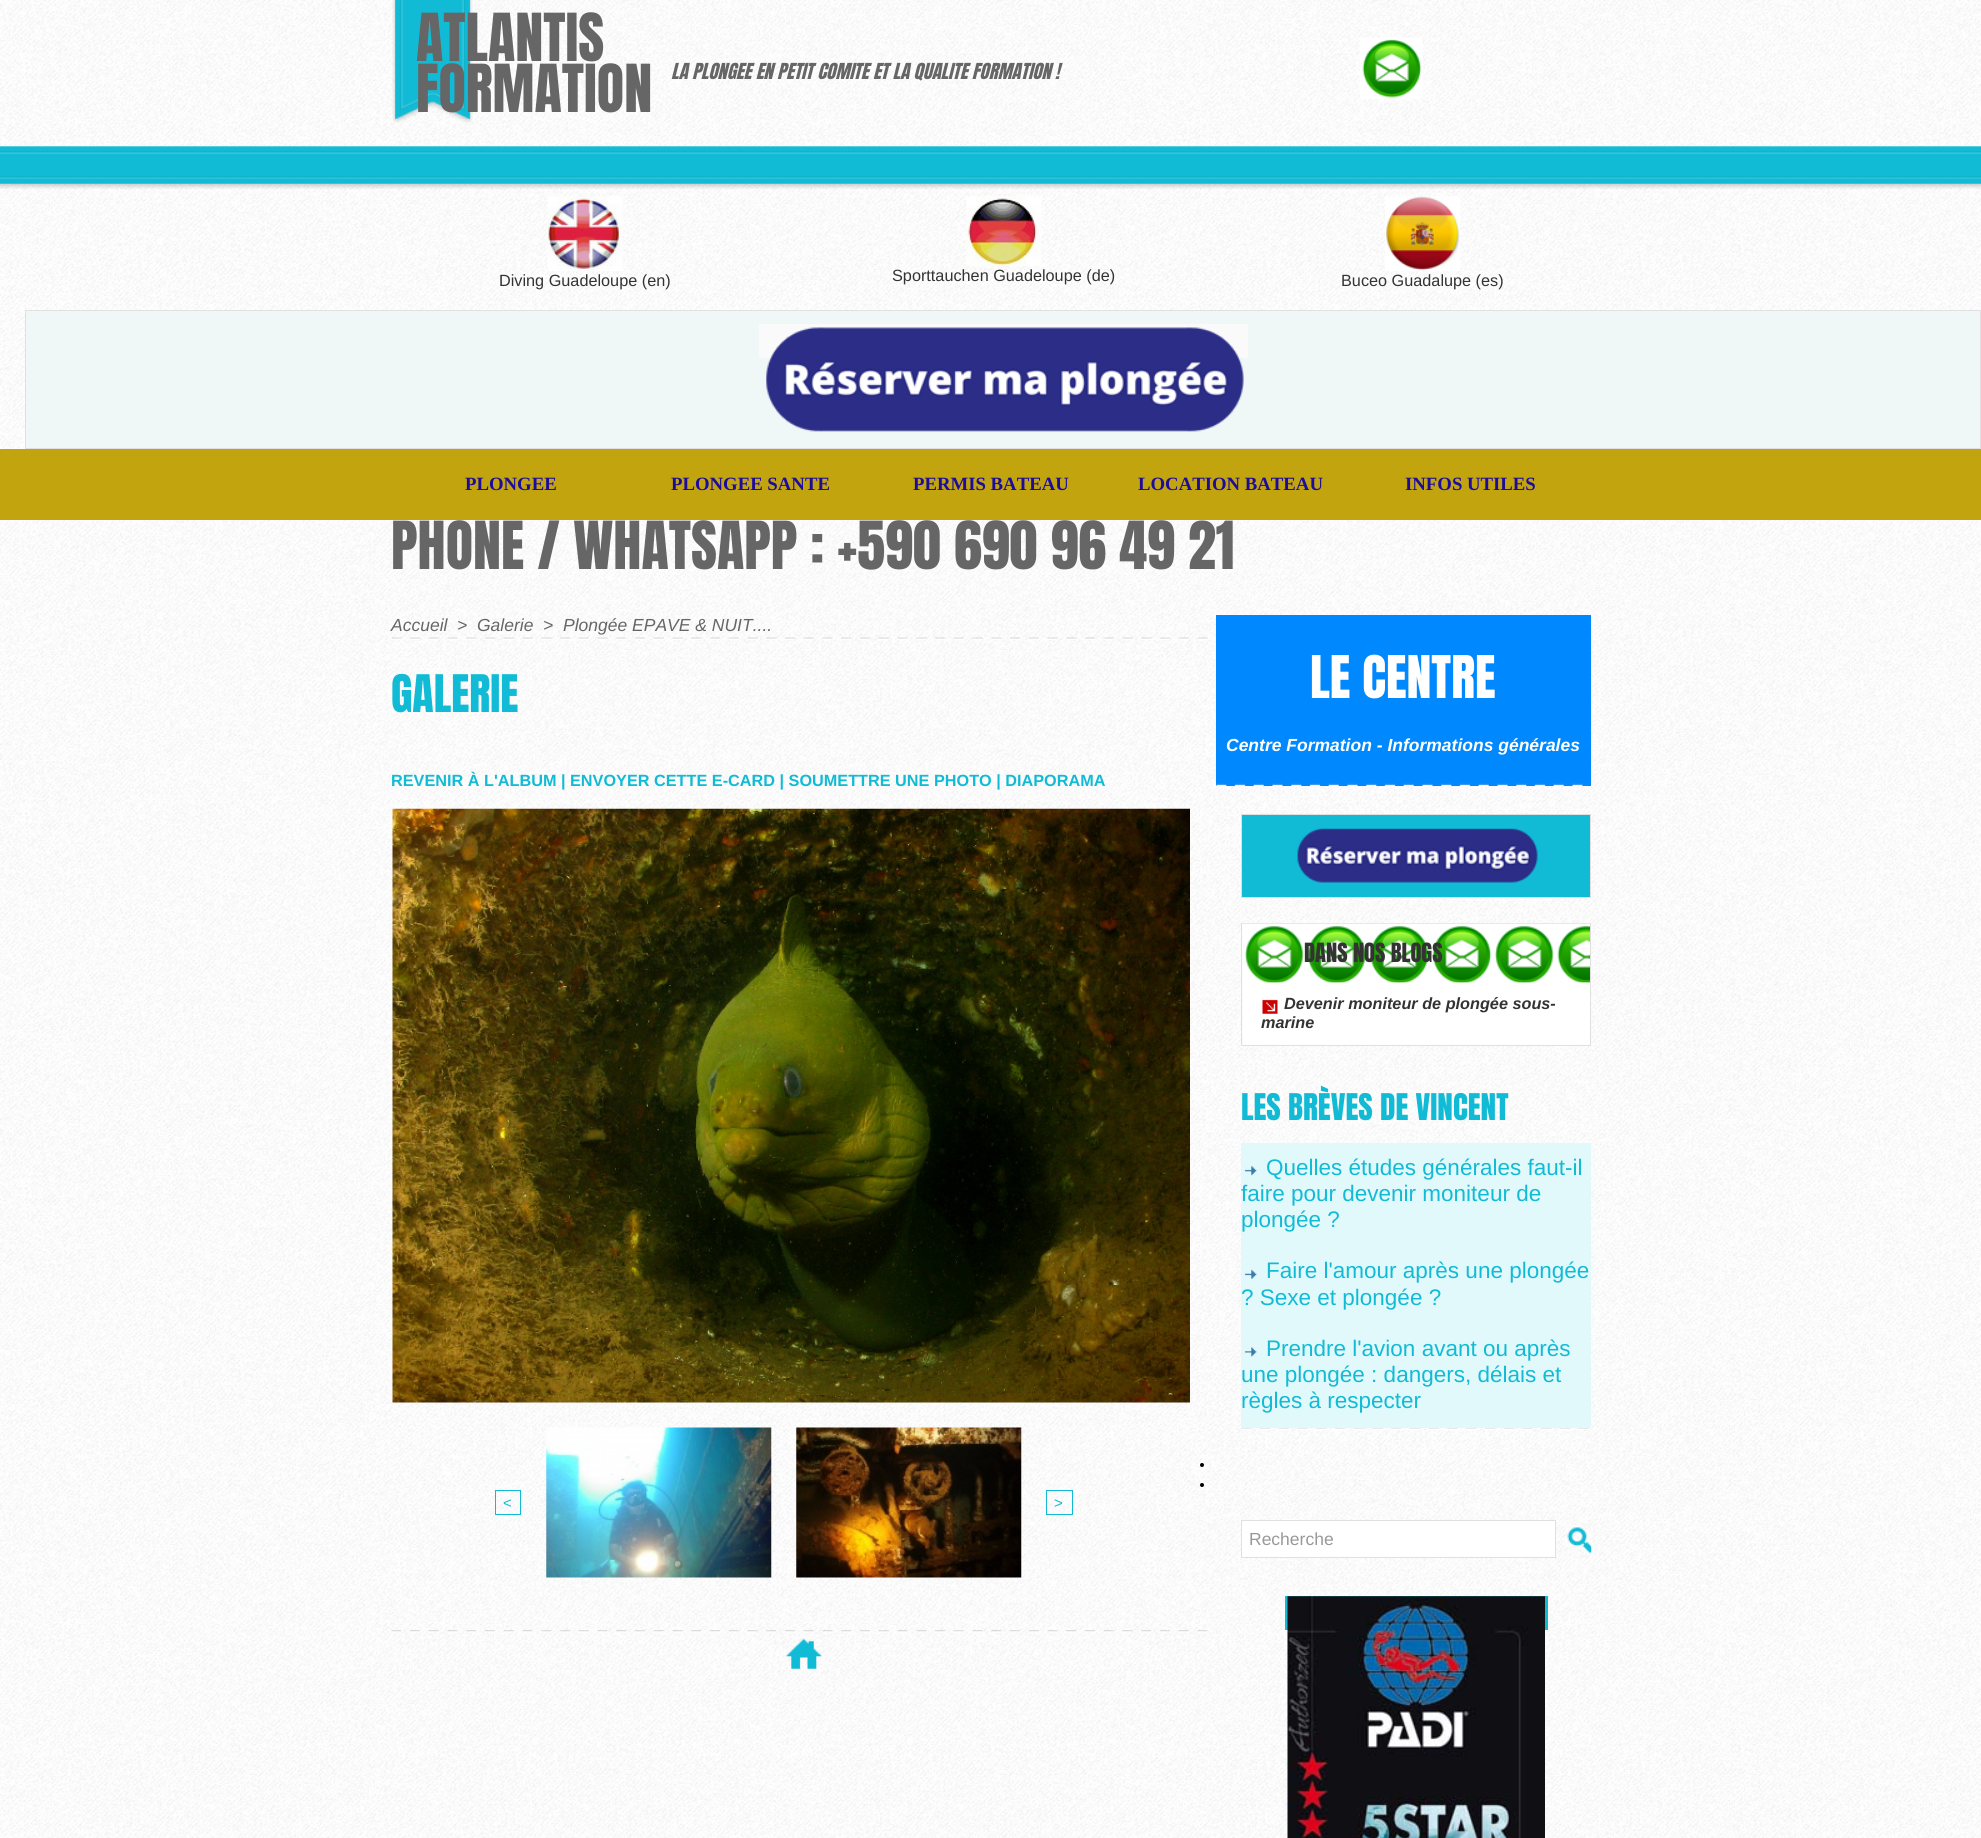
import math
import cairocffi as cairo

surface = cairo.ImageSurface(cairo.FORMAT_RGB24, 1981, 1838)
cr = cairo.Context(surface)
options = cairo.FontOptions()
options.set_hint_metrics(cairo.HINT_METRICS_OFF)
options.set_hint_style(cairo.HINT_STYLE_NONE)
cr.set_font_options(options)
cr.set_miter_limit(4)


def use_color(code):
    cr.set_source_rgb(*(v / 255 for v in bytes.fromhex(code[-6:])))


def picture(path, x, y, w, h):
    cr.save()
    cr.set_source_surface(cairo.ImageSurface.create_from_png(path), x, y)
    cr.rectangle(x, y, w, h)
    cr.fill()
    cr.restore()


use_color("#ffffff")
cr.paint()
picture("img1.png", 0, 0, 1981, 1838)
picture("img2.png", 0, 146, 1981, 43)
picture("img3.png", 392, 0, 81, 123)
cr.select_font_face("Anton")
cr.set_font_size(56.25)
use_color("#666666")
cr.move_to(416, 61)
cr.show_text("ATLANTIS")
cr.move_to(416, 112)
cr.show_text("FORMATION")
cr.select_font_face("Anton", cairo.FONT_SLANT_ITALIC)
cr.set_font_size(18.75)
cr.move_to(671, 79)
cr.show_text("LA PLONGEE EN PETIT COMITE ET LA QUALITE FORMATION !")
picture("img4.png", 1360, 37, 63, 62)
picture("img5.png", 547, 196, 76, 75)
cr.select_font_face("Liberation Sans")
cr.set_font_size(16.25)
use_color("#333333")
cr.move_to(499, 286)
cr.show_text("Diving Guadeloupe (en)")
picture("img6.png", 966, 196, 75, 70)
cr.move_to(892, 281)
cr.show_text("Sporttauchen Guadeloupe (de)")
picture("img7.png", 1385, 196, 75, 75)
cr.move_to(1341, 286)
cr.show_text("Buceo Guadalupe (es)")
use_color("#eff7f7")
cr.rectangle(25.5, 310.5, 1955, 138)
cr.fill_preserve()
use_color("#e0e0e0")
cr.set_line_width(1)
cr.stroke()
use_color("#fafafa")
cr.rectangle(759, 324, 489, 34)
cr.fill()
picture("img8.png", 766, 327, 478, 105)
use_color("#c2a40f")
cr.rectangle(0, 449, 1981, 71)
cr.fill()
cr.select_font_face("Liberation Serif", cairo.FONT_SLANT_NORMAL, cairo.FONT_WEIGHT_BOLD)
cr.set_font_size(18.75)
use_color("#1d0c9c")
cr.move_to(465, 490)
cr.show_text("PLONGEE")
cr.move_to(671, 490)
cr.show_text("PLONGEE SANTE")
cr.move_to(913, 490)
cr.show_text("PERMIS BATEAU")
cr.move_to(1138, 490)
cr.show_text("LOCATION BATEAU")
cr.move_to(1405, 490)
cr.show_text("INFOS UTILES")
cr.select_font_face("Anton")
cr.set_font_size(56.25)
use_color("#666666")
cr.move_to(391, 569)
cr.show_text("PHONE / WHATSAPP : +590 690 96 49 21")
cr.select_font_face("Liberation Sans", cairo.FONT_SLANT_ITALIC)
cr.set_font_size(17.5)
cr.move_to(391, 631)
cr.show_text("Accueil")
cr.move_to(457, 631)
cr.show_text(">")
cr.move_to(477, 631)
cr.show_text("Galerie")
cr.move_to(543, 631)
cr.show_text(">")
cr.move_to(563, 631)
cr.show_text("Plongée EPAVE & NUIT....")
picture("img9.png", 391, 637, 817, 3)
cr.select_font_face("Anton")
cr.set_font_size(44)
use_color("#12bbd5")
cr.move_to(391, 712)
cr.show_text("GALERIE")
cr.select_font_face("Liberation Sans", cairo.FONT_SLANT_NORMAL, cairo.FONT_WEIGHT_BOLD)
cr.set_font_size(16.25)
cr.move_to(391, 786)
cr.show_text("REVENIR À L'ALBUM | ENVOYER CETTE E-CARD | SOUMETTRE UNE PHOTO | DIAPORAMA")
picture("img10.png", 392, 808, 798, 595)
cr.rectangle(495.5, 1490.5, 25, 24)
cr.stroke()
cr.select_font_face("Liberation Sans")
cr.set_font_size(15)
cr.move_to(503, 1508)
cr.show_text("<")
use_color("#ffffff")
cr.rectangle(546, 1428, 225, 150)
cr.fill()
picture("img11.png", 546, 1427, 226, 151)
cr.rectangle(796, 1428, 225, 150)
cr.fill()
picture("img12.png", 796, 1427, 226, 151)
cr.rectangle(1046.5, 1490.5, 26, 24)
use_color("#12bbd5")
cr.stroke()
cr.move_to(1054, 1508)
cr.show_text(">")
picture("img13.png", 391, 1630, 826, 3)
picture("img14.png", 786, 1638, 36, 32)
use_color("#0088ff")
cr.rectangle(1216, 615, 375, 171)
cr.fill()
cr.select_font_face("Anton")
cr.set_font_size(50)
use_color("#ffffff")
cr.move_to(1310, 698)
cr.show_text("LE CENTRE")
cr.select_font_face("Liberation Sans", cairo.FONT_SLANT_ITALIC, cairo.FONT_WEIGHT_BOLD)
cr.set_font_size(17.5)
cr.move_to(1226, 751)
cr.show_text("Centre Formation - Informations générales")
picture("img15.png", 1216, 783, 367, 3)
use_color("#12bbd5")
cr.rectangle(1241.5, 814.5, 349, 83)
cr.fill_preserve()
use_color("#e0e0e0")
cr.stroke()
picture("img16.png", 1297, 828, 241, 55)
cr.rectangle(1241.5, 923.5, 349, 122)
cr.stroke()
use_color("#ffffff")
cr.rectangle(1243, 982, 347, 63)
cr.fill()
picture("img17.png", 1242, 923, 348, 60)
cr.select_font_face("Anton")
cr.set_font_size(22.5)
use_color("#333333")
cr.move_to(1304, 962)
cr.show_text("DANS NOS BLOGS")
picture("img18.png", 1262, 999, 16, 15)
cr.select_font_face("Liberation Sans", cairo.FONT_SLANT_ITALIC, cairo.FONT_WEIGHT_BOLD)
cr.set_font_size(16.25)
cr.move_to(1284, 1009)
cr.show_text("Devenir moniteur de plongée sous-")
cr.move_to(1261, 1028)
cr.show_text("marine")
cr.select_font_face("Anton")
cr.set_font_size(31.25)
use_color("#12bbd5")
cr.move_to(1241, 1120)
cr.show_text("LES BRÈVES DE VINCENT")
use_color("#e2f9fc")
cr.rectangle(1241, 1143, 350, 285)
cr.fill()
picture("img19.png", 1244, 1166, 13, 10)
cr.select_font_face("Liberation Sans")
cr.set_font_size(22.5)
use_color("#12bbd5")
cr.move_to(1266, 1175)
cr.show_text("Quelles études générales faut-il")
cr.move_to(1241, 1201)
cr.show_text("faire pour devenir moniteur de")
cr.move_to(1241, 1227)
cr.show_text("plongée ?")
picture("img20.png", 1244, 1269, 13, 10)
cr.move_to(1266, 1278)
cr.show_text("Faire l'amour après une plongée")
cr.move_to(1241, 1305)
cr.show_text("? Sexe et plongée ?")
picture("img21.png", 1244, 1347, 13, 10)
cr.move_to(1266, 1356)
cr.show_text("Prendre l'avion avant ou après")
cr.move_to(1241, 1382)
cr.show_text("une plongée : dangers, délais et")
cr.move_to(1241, 1408)
cr.show_text("règles à respecter")
picture("img22.png", 1241, 1428, 348, 2)
use_color("#000000")
cr.arc(1202, 1465, 2, 0, 2 * math.pi)
cr.fill()
cr.arc(1202, 1485, 2, 0, 2 * math.pi)
cr.fill()
use_color("#ffffff")
cr.rectangle(1241.5, 1520.5, 314, 37)
cr.fill_preserve()
use_color("#e0e0e0")
cr.stroke()
cr.set_font_size(17.5)
use_color("#999999")
cr.move_to(1249, 1545)
cr.show_text("Recherche")
picture("img23.png", 1567, 1527, 25, 27)
use_color("#12bbd5")
cr.rectangle(1285, 1596, 263, 34)
cr.fill()
picture("img24.png", 1287, 1596, 258, 242)
surface.write_to_png("result.png")
